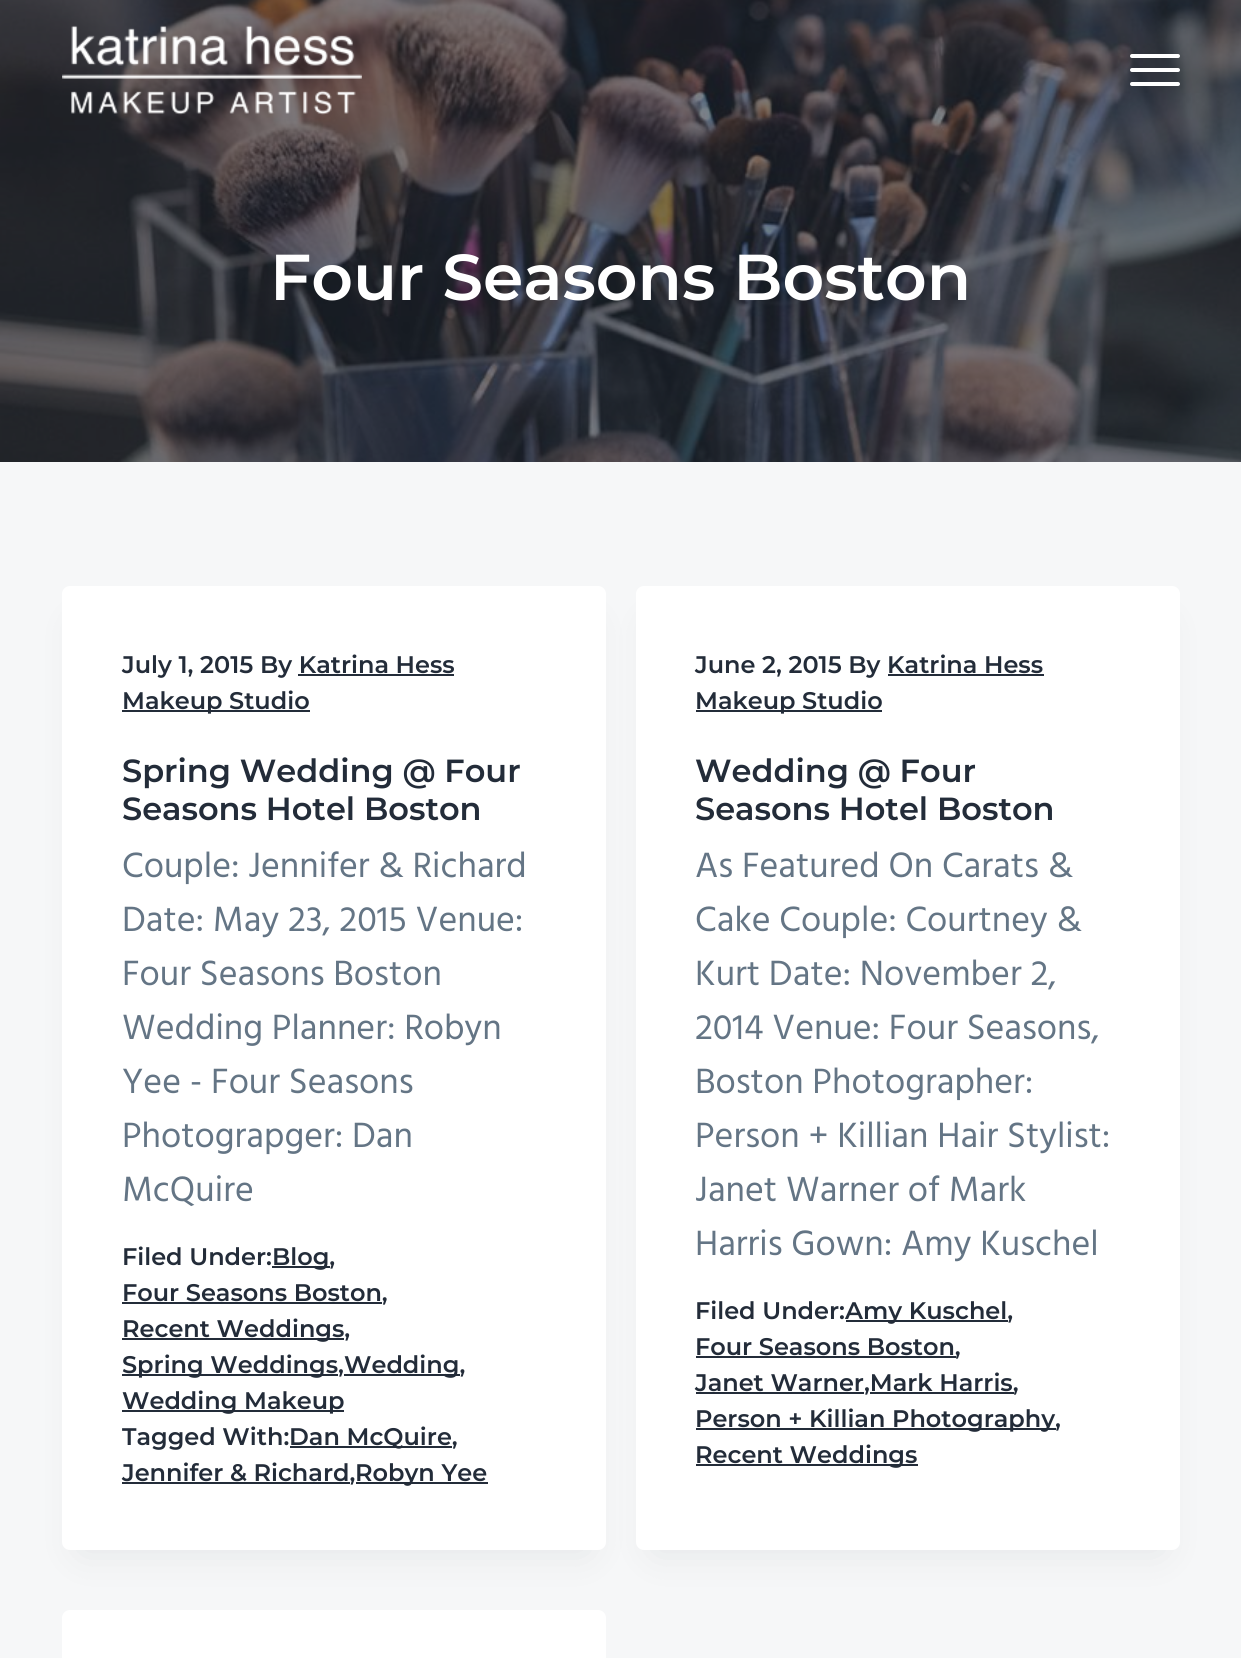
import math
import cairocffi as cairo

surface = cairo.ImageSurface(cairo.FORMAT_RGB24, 1241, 1658)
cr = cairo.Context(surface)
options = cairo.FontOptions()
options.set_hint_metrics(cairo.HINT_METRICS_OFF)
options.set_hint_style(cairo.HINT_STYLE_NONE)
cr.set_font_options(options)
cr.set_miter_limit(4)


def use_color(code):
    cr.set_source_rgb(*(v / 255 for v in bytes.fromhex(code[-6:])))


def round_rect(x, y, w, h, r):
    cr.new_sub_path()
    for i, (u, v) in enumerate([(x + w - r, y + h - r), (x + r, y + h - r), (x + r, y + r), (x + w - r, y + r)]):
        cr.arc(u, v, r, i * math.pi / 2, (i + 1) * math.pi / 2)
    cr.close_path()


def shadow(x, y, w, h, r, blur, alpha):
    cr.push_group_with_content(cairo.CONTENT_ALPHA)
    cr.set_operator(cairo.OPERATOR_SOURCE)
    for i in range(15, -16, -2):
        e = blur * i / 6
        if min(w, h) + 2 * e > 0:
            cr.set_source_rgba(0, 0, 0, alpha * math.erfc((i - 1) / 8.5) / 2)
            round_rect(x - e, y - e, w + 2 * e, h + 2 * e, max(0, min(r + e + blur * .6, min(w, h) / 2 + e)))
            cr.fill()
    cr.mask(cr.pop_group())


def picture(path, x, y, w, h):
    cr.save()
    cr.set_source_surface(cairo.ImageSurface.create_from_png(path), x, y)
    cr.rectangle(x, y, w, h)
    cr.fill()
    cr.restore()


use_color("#f6f7f8")
cr.paint()
picture("img2.png", 0, 0, 1241, 462)
picture("img1.png", 62, 25, 300, 90)
use_color("#ffffff")
round_rect(1130, 68, 50, 4, 2)
cr.fill()
round_rect(1130, 54, 50, 4, 2)
cr.fill()
round_rect(1130, 82, 50, 4, 2)
cr.fill()
cr.select_font_face("Montserrat Thin")
cr.set_font_size(64.75)
cr.move_to(270, 300)
cr.show_text("Four Seasons Boston")
use_color("#232c39")
shadow(82, 626, 504, 924, 0, 20, 0.1)
use_color("#ffffff")
round_rect(62, 586, 544, 964, 8)
cr.fill()
cr.set_font_size(24)
use_color("#232c39")
cr.move_to(122, 673)
cr.show_text("July 1, 2015 By Katrina Hess")
cr.rectangle(122, 710, 188, 2)
cr.fill()
cr.move_to(122, 709)
cr.show_text("Makeup Studio")
cr.rectangle(298, 674, 156, 2)
cr.fill()
cr.set_font_size(32)
cr.move_to(122, 782)
cr.show_text("Spring Wedding @ Four")
cr.move_to(122, 820)
cr.show_text("Seasons Hotel Boston")
cr.select_font_face("Hind")
cr.set_font_size(36)
use_color("#647585")
cr.move_to(122, 877)
cr.show_text("Couple: Jennifer & Richard")
cr.move_to(122, 931)
cr.show_text("Date: May 23, 2015 Venue:")
cr.move_to(122, 985)
cr.show_text("Four Seasons Boston")
cr.move_to(122, 1039)
cr.show_text("Wedding Planner: Robyn")
cr.move_to(122, 1093)
cr.show_text("Yee - Four Seasons")
cr.move_to(122, 1147)
cr.show_text("Photograpger: Dan")
cr.move_to(122, 1201)
cr.show_text("McQuire")
cr.select_font_face("Montserrat Thin")
cr.set_font_size(24)
use_color("#232c39")
cr.move_to(122, 1265)
cr.show_text("Filed Under:")
cr.rectangle(272, 1266, 58, 2)
cr.fill()
cr.move_to(272, 1265)
cr.show_text("Blog,")
cr.rectangle(122, 1302, 260, 2)
cr.fill()
cr.move_to(122, 1301)
cr.show_text("Four Seasons Boston,")
cr.rectangle(122, 1338, 222, 2)
cr.fill()
cr.move_to(122, 1337)
cr.show_text("Recent Weddings,")
cr.rectangle(122, 1374, 216, 2)
cr.fill()
cr.move_to(122, 1373)
cr.show_text("Spring Weddings,")
cr.rectangle(344, 1374, 116, 2)
cr.fill()
cr.move_to(344, 1373)
cr.show_text("Wedding,")
cr.rectangle(122, 1410, 222, 2)
cr.fill()
cr.move_to(122, 1409)
cr.show_text("Wedding Makeup")
cr.move_to(122, 1445)
cr.show_text("Tagged With:")
cr.rectangle(290, 1446, 162, 2)
cr.fill()
cr.move_to(289, 1445)
cr.show_text("Dan McQuire,")
cr.rectangle(122, 1482, 228, 2)
cr.fill()
cr.move_to(122, 1481)
cr.show_text("Jennifer & Richard,")
cr.rectangle(356, 1482, 132, 2)
cr.fill()
cr.move_to(355, 1481)
cr.show_text("Robyn Yee")
use_color("#232c39")
shadow(656, 626, 504, 924, 0, 20, 0.1)
use_color("#ffffff")
round_rect(636, 586, 544, 964, 8)
cr.fill()
use_color("#232c39")
cr.move_to(695, 673)
cr.show_text("June 2, 2015 By Katrina Hess")
cr.rectangle(696, 710, 186, 2)
cr.fill()
cr.move_to(695, 709)
cr.show_text("Makeup Studio")
cr.rectangle(888, 674, 156, 2)
cr.fill()
cr.set_font_size(32)
cr.move_to(695, 782)
cr.show_text("Wedding @ Four")
cr.move_to(695, 820)
cr.show_text("Seasons Hotel Boston")
cr.select_font_face("Hind")
cr.set_font_size(36)
use_color("#647585")
cr.move_to(695, 877)
cr.show_text("As Featured On Carats &")
cr.move_to(695, 931)
cr.show_text("Cake Couple: Courtney &")
cr.move_to(695, 985)
cr.show_text("Kurt Date: November 2,")
cr.move_to(695, 1039)
cr.show_text("2014 Venue: Four Seasons,")
cr.move_to(695, 1093)
cr.show_text("Boston Photographer:")
cr.move_to(695, 1147)
cr.show_text("Person + Killian Hair Stylist:")
cr.move_to(695, 1201)
cr.show_text("Janet Warner of Mark")
cr.move_to(695, 1255)
cr.show_text("Harris Gown: Amy Kuschel")
cr.select_font_face("Montserrat Thin")
cr.set_font_size(24)
use_color("#232c39")
cr.move_to(695, 1319)
cr.show_text("Filed Under:")
cr.rectangle(846, 1320, 162, 2)
cr.fill()
cr.move_to(845, 1319)
cr.show_text("Amy Kuschel,")
cr.rectangle(696, 1356, 260, 2)
cr.fill()
cr.move_to(695, 1355)
cr.show_text("Four Seasons Boston,")
cr.rectangle(696, 1392, 168, 2)
cr.fill()
cr.move_to(695, 1391)
cr.show_text("Janet Warner,Mark Harris,")
cr.rectangle(870, 1392, 144, 2)
cr.fill()
cr.rectangle(696, 1428, 360, 2)
cr.fill()
cr.move_to(695, 1427)
cr.show_text("Person + Killian Photography,")
cr.rectangle(696, 1464, 222, 2)
cr.fill()
cr.move_to(695, 1463)
cr.show_text("Recent Weddings")
use_color("#ffffff")
round_rect(62, 1610, 544, 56, 8)
cr.fill()
surface.write_to_png("result.png")
